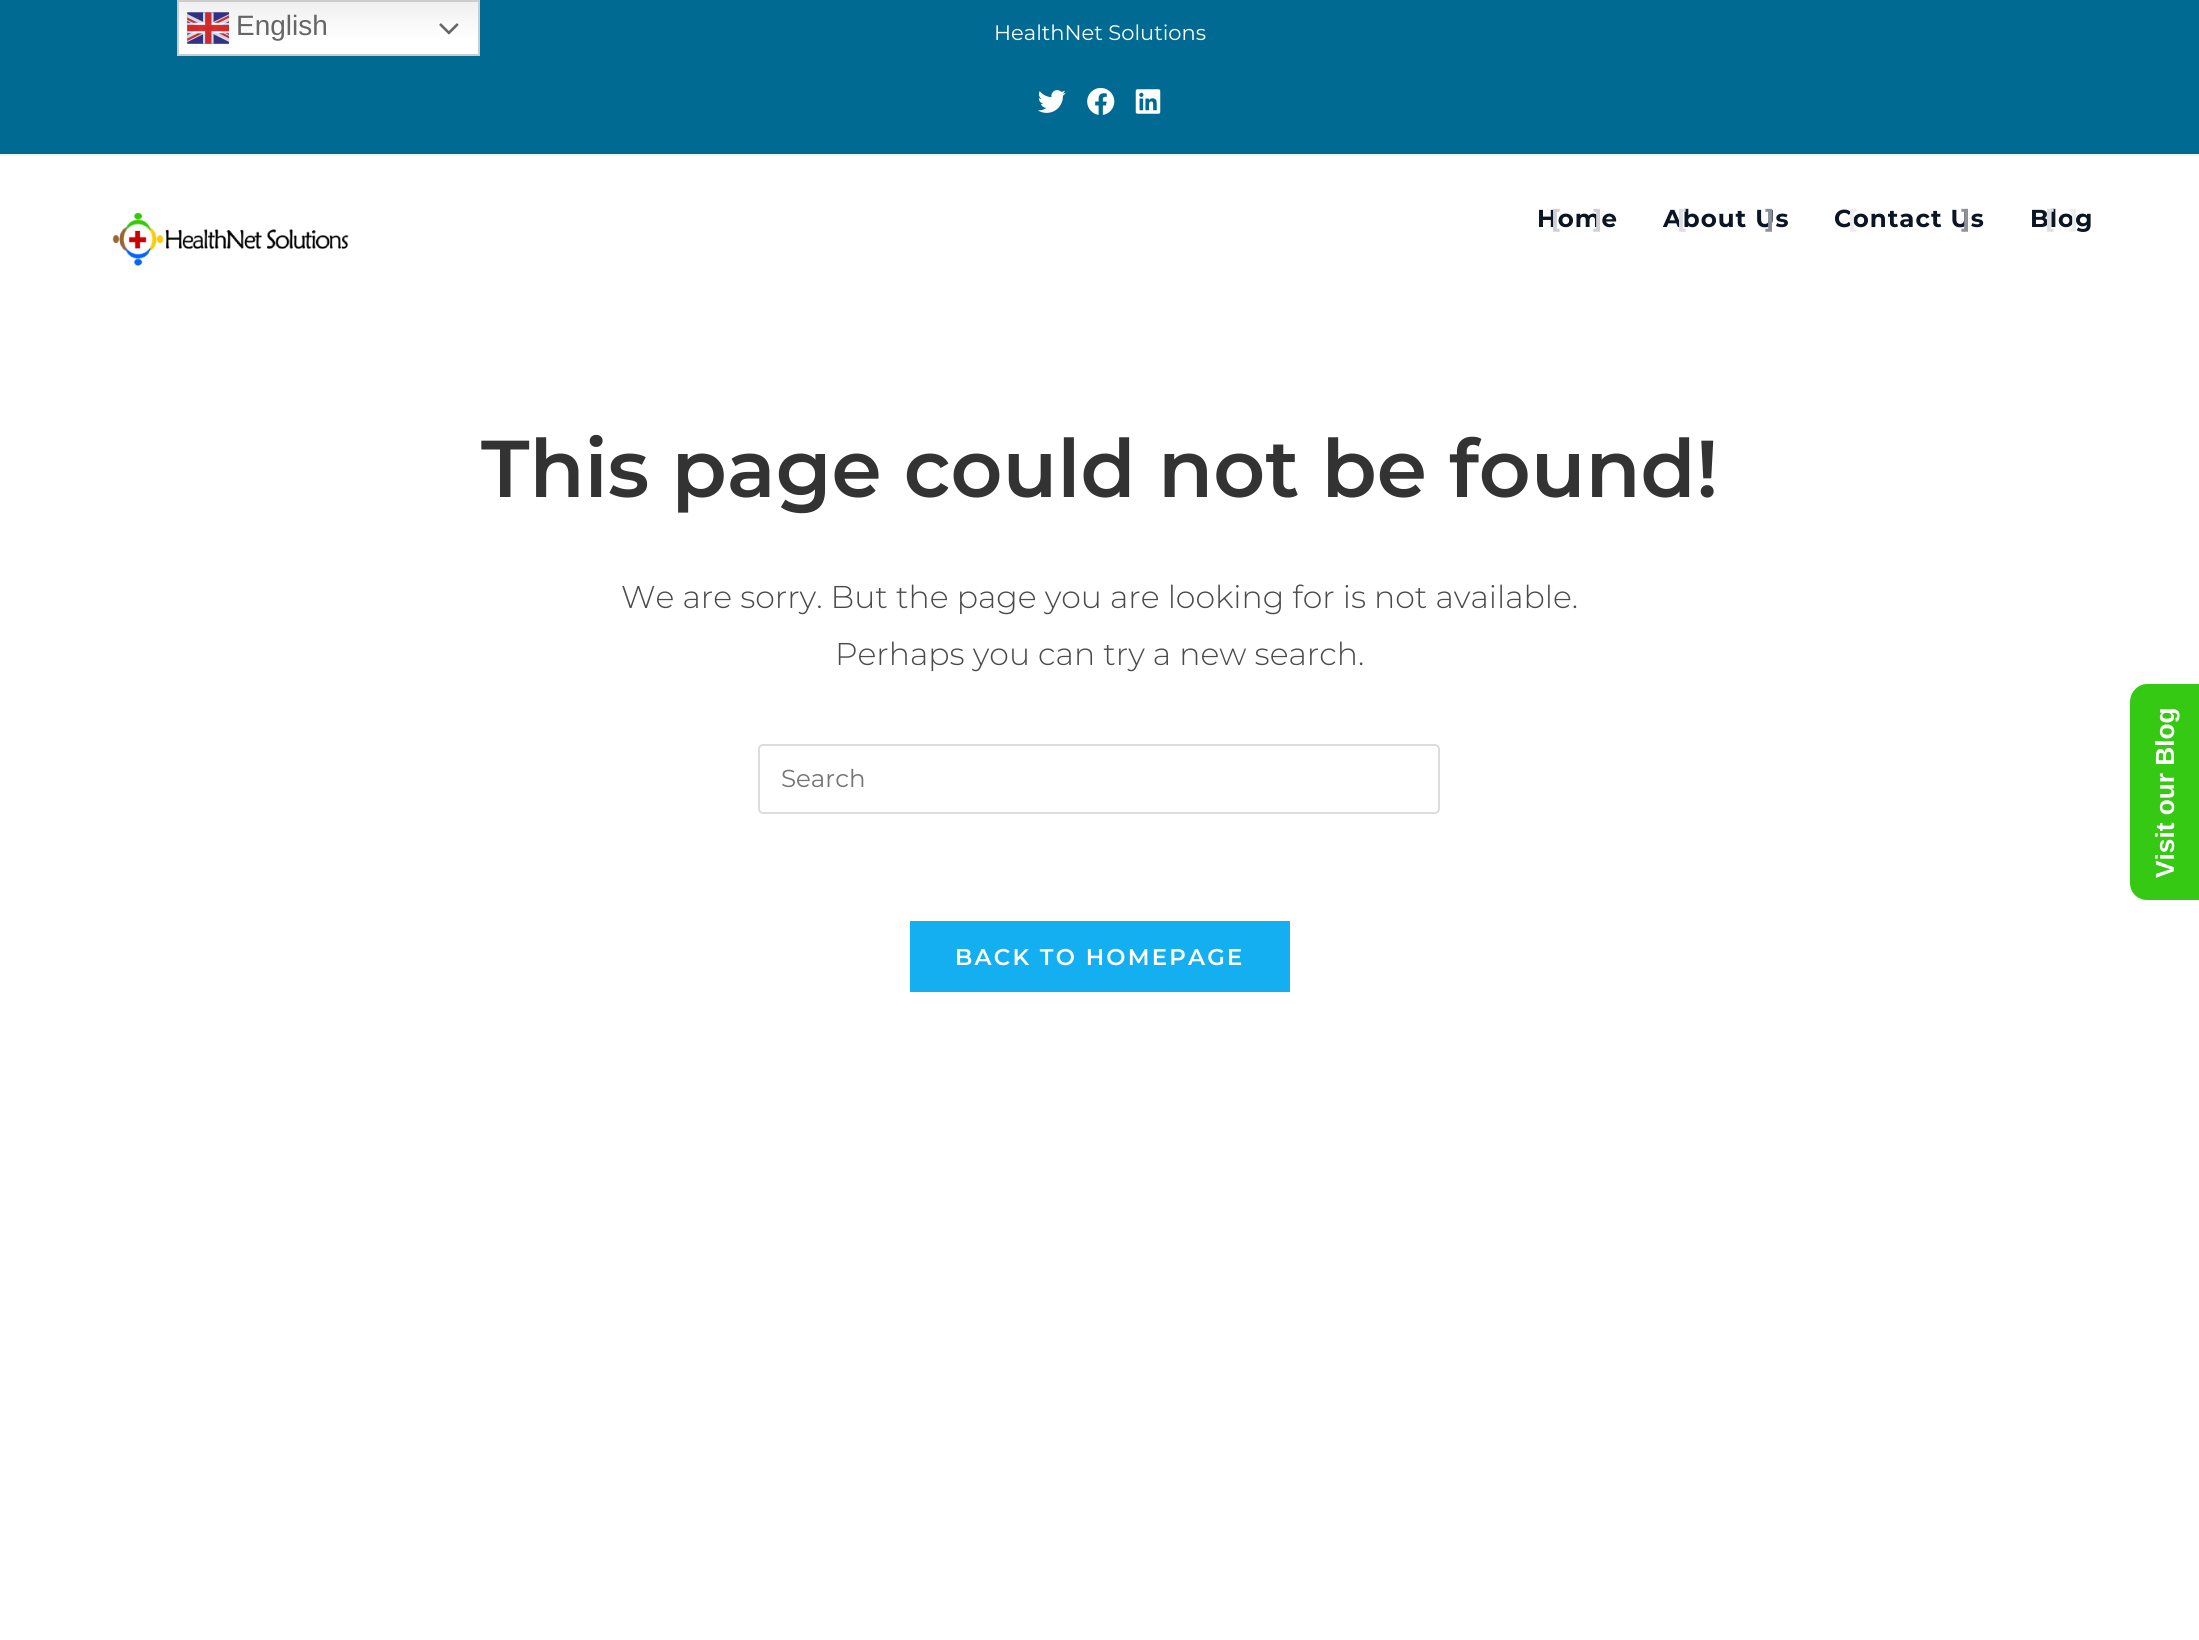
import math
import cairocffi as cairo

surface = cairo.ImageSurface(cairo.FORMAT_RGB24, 2199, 1640)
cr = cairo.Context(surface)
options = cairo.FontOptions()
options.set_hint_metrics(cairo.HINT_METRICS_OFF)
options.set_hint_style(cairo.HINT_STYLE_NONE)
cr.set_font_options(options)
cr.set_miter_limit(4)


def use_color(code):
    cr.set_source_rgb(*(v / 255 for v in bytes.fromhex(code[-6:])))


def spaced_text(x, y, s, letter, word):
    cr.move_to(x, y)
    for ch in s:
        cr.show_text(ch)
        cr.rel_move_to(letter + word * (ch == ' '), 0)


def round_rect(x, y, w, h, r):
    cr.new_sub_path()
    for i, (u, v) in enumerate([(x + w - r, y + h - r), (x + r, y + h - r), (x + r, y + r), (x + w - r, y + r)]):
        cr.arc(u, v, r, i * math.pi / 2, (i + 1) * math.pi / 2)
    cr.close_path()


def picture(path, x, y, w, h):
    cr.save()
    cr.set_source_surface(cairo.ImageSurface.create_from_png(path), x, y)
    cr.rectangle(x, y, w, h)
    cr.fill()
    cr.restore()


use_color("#ffffff")
cr.paint()
use_color("#006a92")
cr.rectangle(0, 0, 2199, 154)
cr.fill()
gradient = cairo.LinearGradient(328, 0, 328, 56)
gradient.add_color_stop_rgba(0, 0.937, 0.937, 0.937, 1)
gradient.add_color_stop_rgba(0.7, 1, 1, 1, 1)
cr.set_source(gradient)
cr.rectangle(179, 2, 299, 52)
cr.fill()
cr.rectangle(178, 1, 301, 54)
use_color("#cccccc")
cr.stroke()
picture("img1.png", 187, 12, 42, 32)
cr.select_font_face("Liberation Sans")
cr.set_font_size(28)
use_color("#666666")
cr.move_to(236, 35)
cr.show_text("English")
picture("img2.png", 439, 23, 20, 12)
use_color("#f1f1f1")
cr.rectangle(0, 154, 2199, 2)
cr.fill()
cr.select_font_face("Montserrat")
cr.set_font_size(21)
use_color("#ffffff")
cr.move_to(994, 40)
cr.show_text("HealthNet Solutions")
picture("img3.png", 1038, 90, 28, 23)
picture("img4.png", 1087, 87, 28, 28)
picture("img5.png", 1135, 89, 26, 25)
picture("img6.png", 112, 212, 237, 54)
cr.select_font_face("Montserrat", cairo.FONT_SLANT_NORMAL, cairo.FONT_WEIGHT_BOLD)
cr.set_font_size(24.5)
use_color("#0b1525")
spaced_text(1537, 227, "Home", 1, 0)
use_color("#ced0d3")
spaced_text(1551, 227, "[", 1, 0)
spaced_text(1593, 227, "]", 1, 0)
use_color("#0b1525")
spaced_text(1663, 227, "About Us", 1, 0)
use_color("#dddee1")
spaced_text(1677, 227, "[", 1, 0)
use_color("#8d9199")
spaced_text(1765, 227, "]", 1, 0)
use_color("#0b1525")
spaced_text(1834, 227, "Contact Us", 1, 0)
use_color("#ededee")
spaced_text(1848, 227, "[", 1, 0)
use_color("#8d9199")
spaced_text(1961, 227, "]", 1, 0)
use_color("#0b1525")
spaced_text(2030, 227, "Blog", 1, 0)
use_color("#dddee1")
spaced_text(2045, 227, "[", 1, 0)
use_color("#ededee")
spaced_text(2069, 227, "]", 1, 0)
cr.select_font_face("Montserrat SemiBold")
cr.set_font_size(80.5)
use_color("#333333")
cr.move_to(481, 497)
cr.show_text("This page could not be found!")
cr.select_font_face("Montserrat Light")
cr.set_font_size(31.5)
use_color("#4a4a4a")
cr.move_to(621, 608)
cr.show_text("We are sorry. But the page you are looking for is not available.")
cr.move_to(835, 665)
cr.show_text("Perhaps you can try a new search.")
round_rect(759, 745, 680, 68, 4)
use_color("#dddddd")
cr.stroke()
cr.select_font_face("Montserrat")
cr.set_font_size(24.5)
use_color("#757575")
cr.move_to(781, 787)
cr.show_text("Search")
use_color("#13aff0")
cr.rectangle(910, 921, 380, 71)
cr.fill()
cr.select_font_face("Montserrat SemiBold")
cr.set_font_size(22.75)
use_color("#ffffff")
spaced_text(955, 965, "BACK TO HOMEPAGE", 2.25, 0)
use_color("#36c913")
cr.new_path()
cr.move_to(2130, 883)
cr.line_to(2130, 702)
cr.curve_to(2130, 692, 2138, 684, 2147, 684)
cr.line_to(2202, 684)
cr.line_to(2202, 900)
cr.line_to(2147, 900)
cr.curve_to(2138, 900, 2130, 893, 2130, 883)
cr.close_path()
cr.fill()
cr.select_font_face("Liberation Sans", cairo.FONT_SLANT_NORMAL, cairo.FONT_WEIGHT_BOLD)
cr.set_font_size(26.25)
use_color("#ffffff")
cr.save()
cr.translate(2174, 878)
cr.rotate(-90 * math.pi / 180)
cr.move_to(0, 0)
cr.show_text("Visit our Blog")
cr.restore()
surface.write_to_png("result.png")
